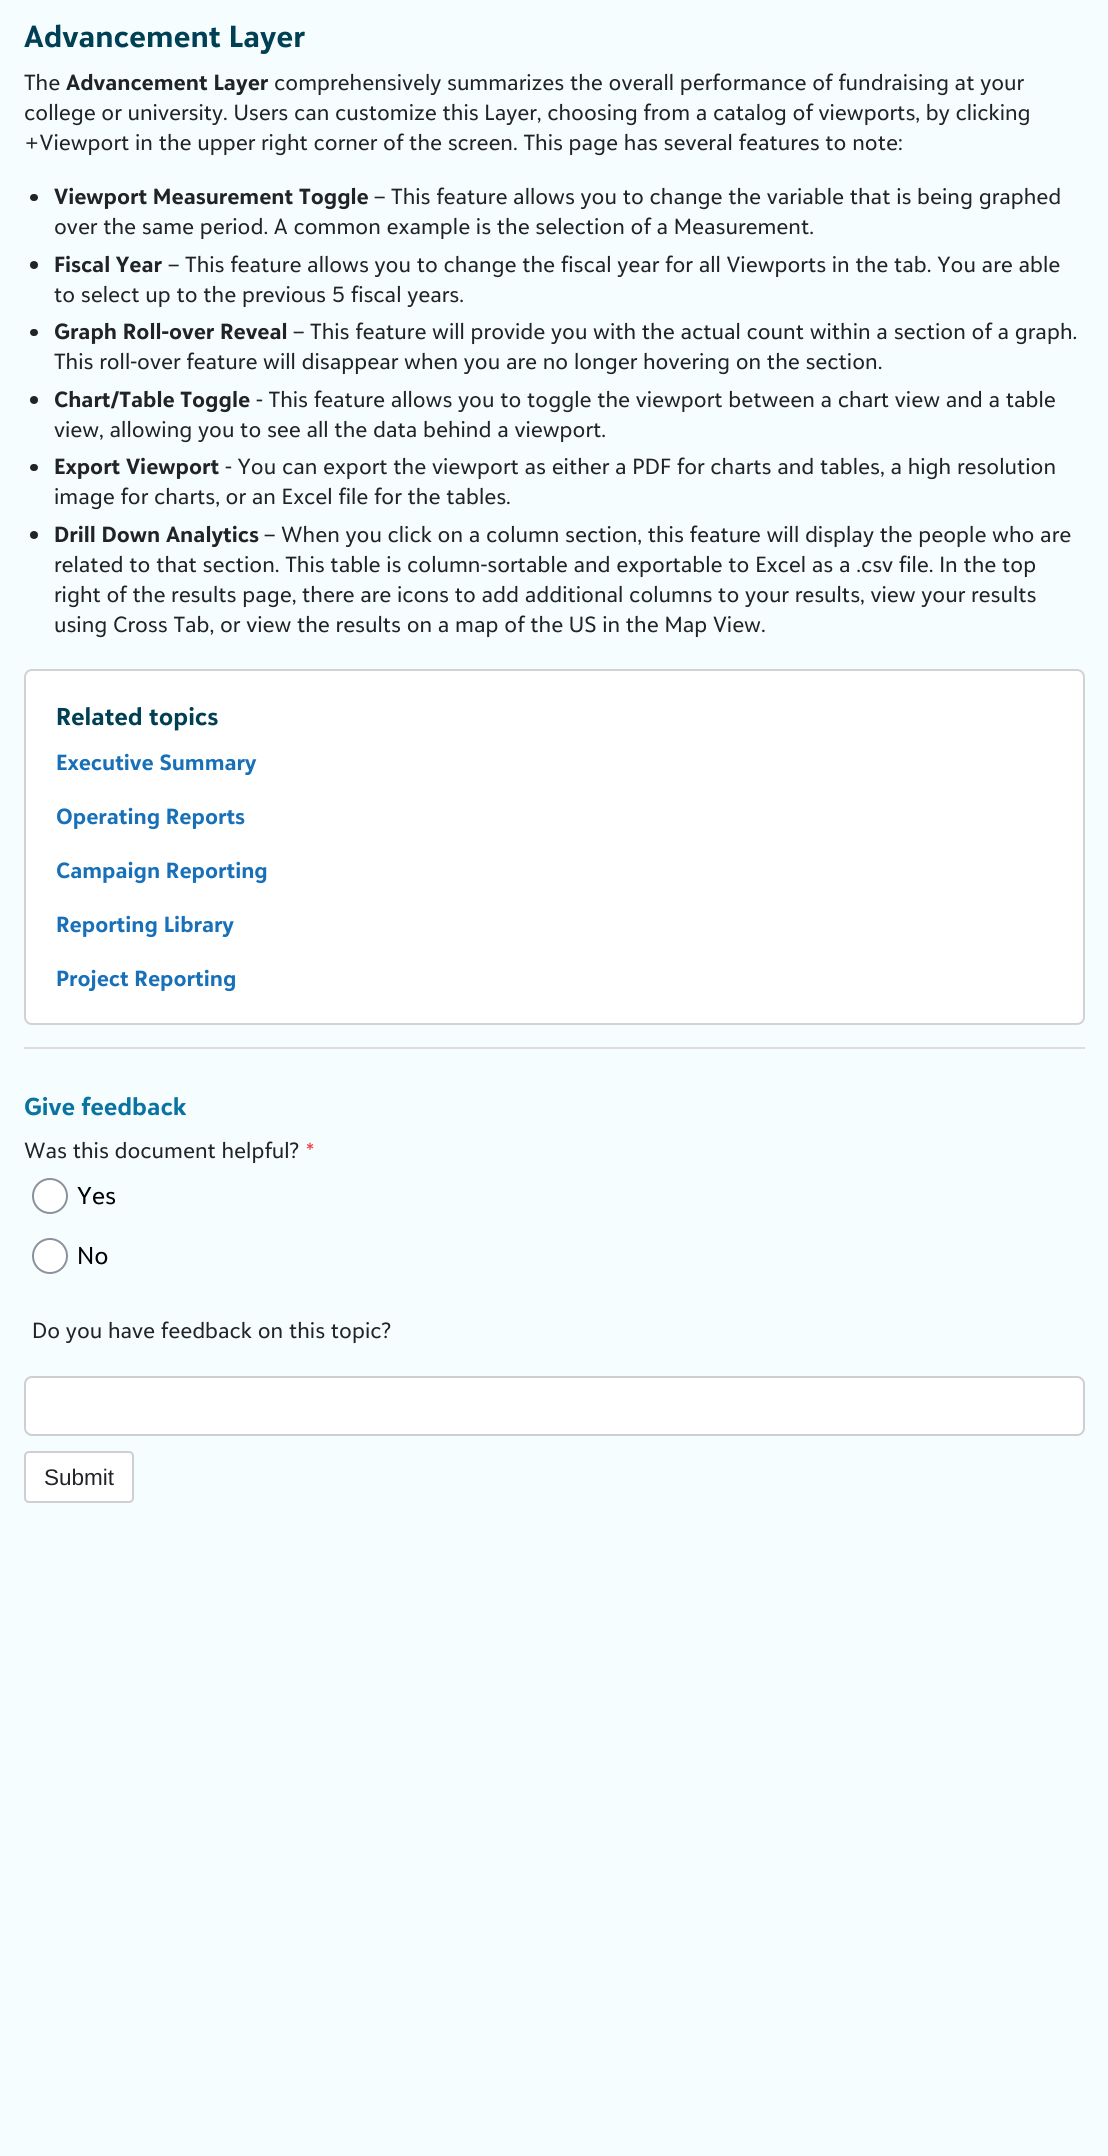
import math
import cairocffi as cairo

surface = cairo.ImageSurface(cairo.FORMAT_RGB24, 1108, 2156)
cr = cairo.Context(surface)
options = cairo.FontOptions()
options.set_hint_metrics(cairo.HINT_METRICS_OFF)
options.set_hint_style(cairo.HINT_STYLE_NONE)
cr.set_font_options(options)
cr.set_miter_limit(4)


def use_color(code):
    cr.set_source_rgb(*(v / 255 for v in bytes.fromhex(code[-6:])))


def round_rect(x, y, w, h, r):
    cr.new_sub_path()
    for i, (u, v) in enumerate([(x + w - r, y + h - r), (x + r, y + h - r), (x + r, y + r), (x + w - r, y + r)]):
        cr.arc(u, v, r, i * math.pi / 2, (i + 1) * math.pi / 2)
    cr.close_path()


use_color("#f5fdff")
cr.paint()
cr.select_font_face("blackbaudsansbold", cairo.FONT_SLANT_NORMAL, cairo.FONT_WEIGHT_BOLD)
cr.set_font_size(30)
use_color("#004054")
cr.move_to(24, 47)
cr.show_text("Advancement Layer")
cr.select_font_face("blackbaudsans")
cr.set_font_size(21.6)
use_color("#212327")
cr.move_to(24, 90)
cr.show_text("The")
cr.select_font_face("blackbaudsansbold", cairo.FONT_SLANT_NORMAL, cairo.FONT_WEIGHT_BOLD)
cr.move_to(66, 90)
cr.show_text("Advancement Layer")
cr.select_font_face("blackbaudsans")
cr.move_to(274, 90)
cr.show_text("comprehensively summarizes the overall performance of fundraising at your")
cr.move_to(24, 120)
cr.show_text("college or university. Users can customize this Layer, choosing from a catalog of viewports, by clicking")
cr.move_to(24, 150)
cr.show_text("+Viewport in the upper right corner of the screen. This page has several features to note:")
round_rect(30, 194, 8, 7, 3.5)
cr.fill()
cr.select_font_face("blackbaudsansbold", cairo.FONT_SLANT_NORMAL, cairo.FONT_WEIGHT_BOLD)
cr.move_to(54, 204)
cr.show_text("Viewport Measurement Toggle")
cr.select_font_face("blackbaudsans")
cr.move_to(374, 204)
cr.show_text("– This feature allows you to change the variable that is being graphed")
cr.move_to(54, 234)
cr.show_text("over the same period. A common example is the selection of a Measurement.")
cr.new_path()
cr.arc(34, 265, 4, 0, 2 * math.pi)
cr.fill()
cr.select_font_face("blackbaudsansbold", cairo.FONT_SLANT_NORMAL, cairo.FONT_WEIGHT_BOLD)
cr.move_to(54, 272)
cr.show_text("Fiscal Year")
cr.select_font_face("blackbaudsans")
cr.move_to(168, 272)
cr.show_text("– This feature allows you to change the fiscal year for all Viewports in the tab. You are able")
cr.move_to(54, 302)
cr.show_text("to select up to the previous 5 fiscal years.")
round_rect(30, 329, 8, 7, 3.5)
cr.fill()
cr.select_font_face("blackbaudsansbold", cairo.FONT_SLANT_NORMAL, cairo.FONT_WEIGHT_BOLD)
cr.move_to(54, 339)
cr.show_text("Graph Roll-over Reveal")
cr.select_font_face("blackbaudsans")
cr.move_to(293, 339)
cr.show_text("– This feature will provide you with the actual count within a section of a graph.")
cr.move_to(54, 369)
cr.show_text("This roll-over feature will disappear when you are no longer hovering on the section.")
cr.new_path()
cr.arc(34, 400, 4, 0, 2 * math.pi)
cr.fill()
cr.select_font_face("blackbaudsansbold", cairo.FONT_SLANT_NORMAL, cairo.FONT_WEIGHT_BOLD)
cr.move_to(54, 407)
cr.show_text("Chart/Table Toggle")
cr.select_font_face("blackbaudsans")
cr.move_to(256, 407)
cr.show_text("- This feature allows you to toggle the viewport between a chart view and a table")
cr.move_to(54, 437)
cr.show_text("view, allowing you to see all the data behind a viewport.")
round_rect(30, 464, 8, 7, 3.5)
cr.fill()
cr.select_font_face("blackbaudsansbold", cairo.FONT_SLANT_NORMAL, cairo.FONT_WEIGHT_BOLD)
cr.move_to(54, 474)
cr.show_text("Export Viewport")
cr.select_font_face("blackbaudsans")
cr.move_to(225, 474)
cr.show_text("- You can export the viewport as either a PDF for charts and tables, a high resolution")
cr.move_to(54, 504)
cr.show_text("image for charts, or an Excel file for the tables.")
cr.new_path()
cr.arc(34, 535, 4, 0, 2 * math.pi)
cr.fill()
cr.select_font_face("blackbaudsansbold", cairo.FONT_SLANT_NORMAL, cairo.FONT_WEIGHT_BOLD)
cr.move_to(54, 542)
cr.show_text("Drill Down Analytics")
cr.select_font_face("blackbaudsans")
cr.move_to(264, 542)
cr.show_text("– When you click on a column section, this feature will display the people who are")
cr.move_to(54, 572)
cr.show_text("related to that section. This table is column-sortable and exportable to Excel as a .csv file. In the top")
cr.move_to(54, 602)
cr.show_text("right of the results page, there are icons to add additional columns to your results, view your results")
cr.move_to(54, 632)
cr.show_text("using Cross Tab, or view the results on a map of the US in the Map View.")
use_color("#ffffff")
round_rect(25, 670, 1059, 354, 7)
cr.fill_preserve()
use_color("#d2d2d2")
cr.stroke()
cr.select_font_face("blackbaudsansbold", cairo.FONT_SLANT_NORMAL, cairo.FONT_WEIGHT_BOLD)
cr.set_font_size(24)
use_color("#004054")
cr.move_to(56, 725)
cr.show_text("Related topics")
cr.set_font_size(21.6)
use_color("#1870b8")
cr.move_to(56, 770)
cr.show_text("Executive Summary")
cr.move_to(56, 824)
cr.show_text("Operating Reports")
cr.move_to(56, 878)
cr.show_text("Campaign Reporting")
cr.move_to(56, 932)
cr.show_text("Reporting Library")
cr.move_to(56, 986)
cr.show_text("Project Reporting")
use_color("#dddddd")
cr.rectangle(24, 1047, 1061, 2)
cr.fill()
cr.set_font_size(24)
use_color("#0974a1")
cr.move_to(24, 1115)
cr.show_text("Give feedback")
cr.select_font_face("blackbaudsans")
cr.set_font_size(21.6)
use_color("#212327")
cr.move_to(24, 1158)
cr.show_text("Was this document helpful?")
use_color("#ef4044")
cr.move_to(306, 1158)
cr.show_text("*")
use_color("#ffffff")
cr.new_path()
cr.arc(50, 1196, 17, 0, 2 * math.pi)
cr.fill_preserve()
use_color("#8c929c")
cr.stroke()
cr.set_font_size(24)
use_color("#000000")
cr.move_to(77, 1204)
cr.show_text("Yes")
use_color("#ffffff")
cr.new_path()
cr.arc(50, 1256, 17, 0, 2 * math.pi)
cr.fill_preserve()
use_color("#8c929c")
cr.stroke()
use_color("#000000")
cr.move_to(77, 1264)
cr.show_text("No")
cr.set_font_size(21.6)
use_color("#212327")
cr.move_to(32, 1338)
cr.show_text("Do you have feedback on this topic?")
use_color("#ffffff")
round_rect(25, 1377, 1059, 58, 7)
cr.fill_preserve()
use_color("#cdcfd2")
cr.stroke()
use_color("#ffffff")
round_rect(25, 1452, 108, 50, 4)
cr.fill_preserve()
use_color("#cdcfd2")
cr.stroke()
cr.select_font_face("Liberation Sans")
cr.set_font_size(22.5)
use_color("#212327")
cr.move_to(44, 1485)
cr.show_text("Submit")
surface.write_to_png("result.png")
